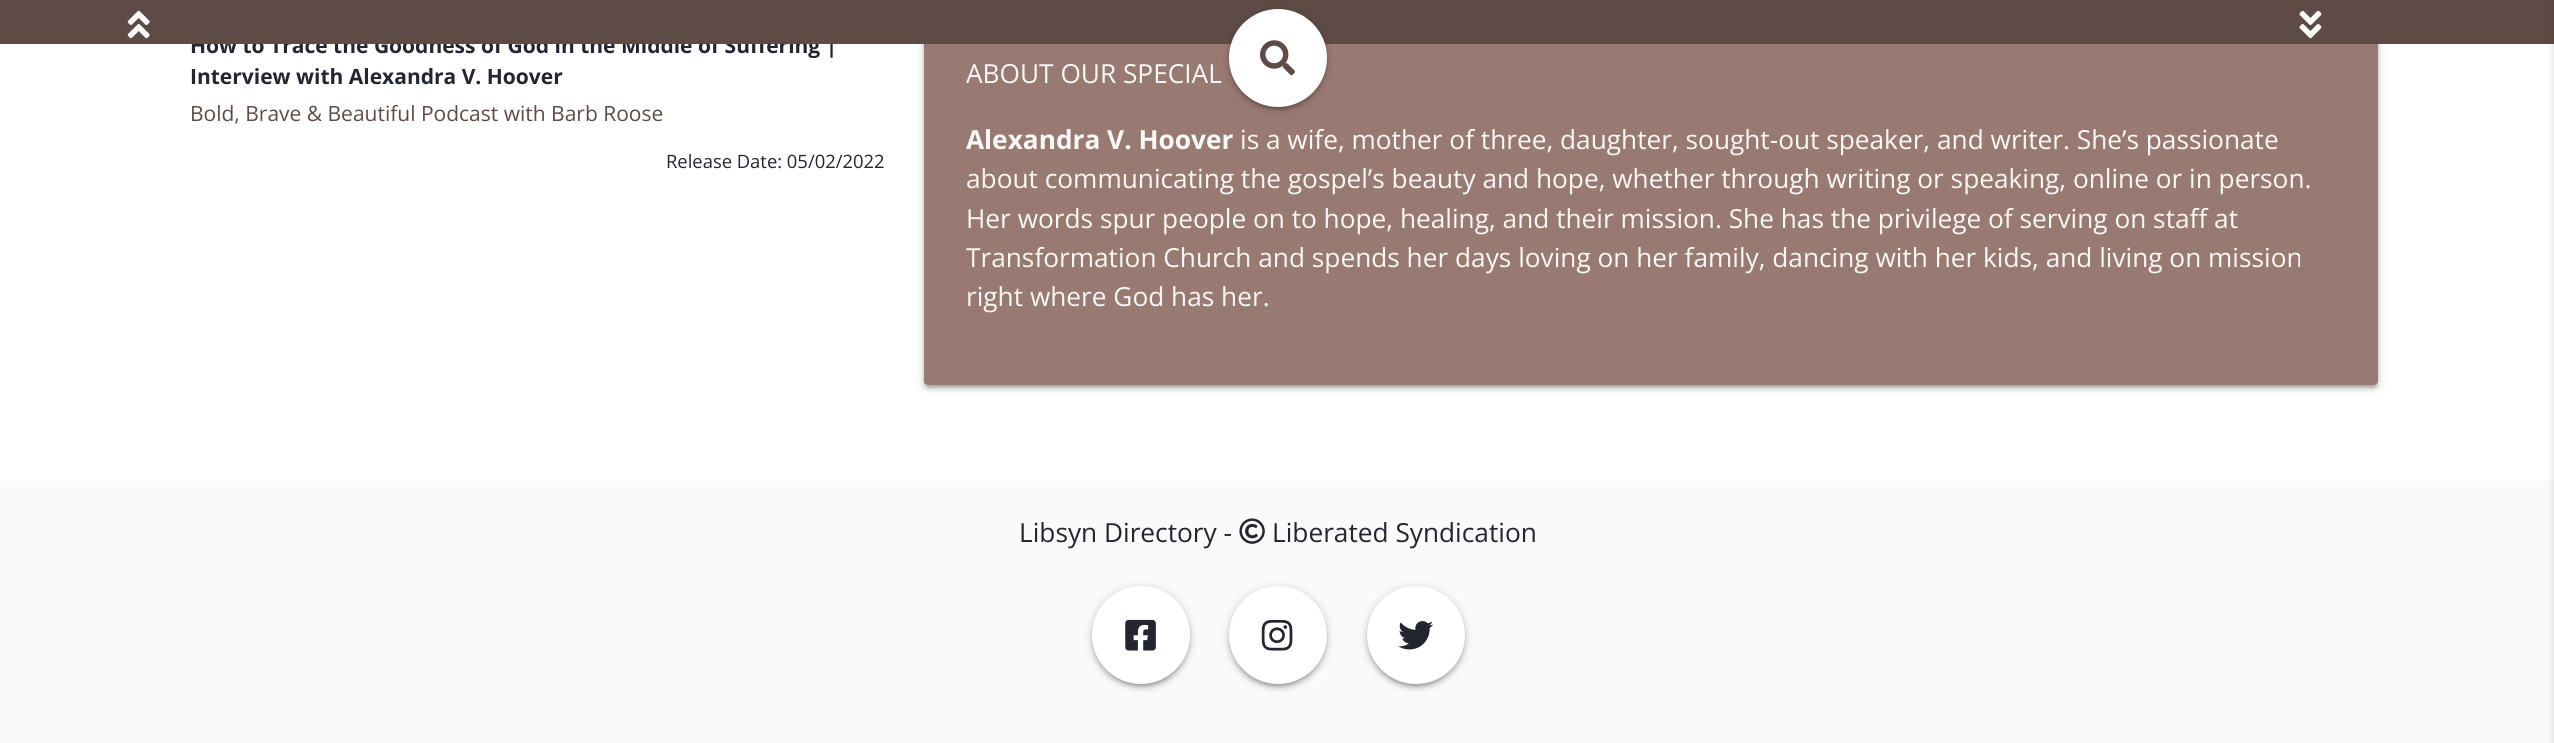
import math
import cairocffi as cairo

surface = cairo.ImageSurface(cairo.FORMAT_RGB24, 2554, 743)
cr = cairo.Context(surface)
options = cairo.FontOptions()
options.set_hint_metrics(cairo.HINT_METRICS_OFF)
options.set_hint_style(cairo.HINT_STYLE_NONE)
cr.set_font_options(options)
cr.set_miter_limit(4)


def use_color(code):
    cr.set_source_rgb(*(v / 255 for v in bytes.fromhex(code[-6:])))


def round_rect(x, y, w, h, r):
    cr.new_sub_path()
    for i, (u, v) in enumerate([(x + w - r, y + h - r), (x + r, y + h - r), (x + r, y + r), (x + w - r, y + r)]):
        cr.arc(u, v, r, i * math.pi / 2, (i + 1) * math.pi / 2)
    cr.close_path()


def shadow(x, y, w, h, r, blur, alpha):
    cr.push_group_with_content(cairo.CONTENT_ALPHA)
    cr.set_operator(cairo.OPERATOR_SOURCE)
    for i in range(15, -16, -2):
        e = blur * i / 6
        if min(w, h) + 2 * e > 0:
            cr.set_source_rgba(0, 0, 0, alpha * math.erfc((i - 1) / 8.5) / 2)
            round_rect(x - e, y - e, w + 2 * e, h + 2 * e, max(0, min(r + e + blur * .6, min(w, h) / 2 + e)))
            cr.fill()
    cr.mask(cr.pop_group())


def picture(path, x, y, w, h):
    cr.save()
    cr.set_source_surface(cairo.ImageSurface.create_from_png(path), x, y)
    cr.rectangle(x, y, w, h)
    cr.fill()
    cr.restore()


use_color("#ffffff")
cr.paint()
cr.select_font_face("Open Sans", cairo.FONT_SLANT_NORMAL, cairo.FONT_WEIGHT_BOLD)
cr.set_font_size(21)
use_color("#232530")
cr.move_to(190, 53)
cr.show_text("How to Trace the Goodness of God in the Middle of Suffering |")
use_color("#000000")
shadow(924, -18, 1454, 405, 4, 4.5, 0.2)
shadow(928, -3, 1447, 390, 0, 1, 0.12)
shadow(924, -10, 1454, 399, 4, 2, 0.14)
use_color("#997a72")
round_rect(924, -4, 1454, 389, 4)
cr.fill()
use_color("#5f4b46")
cr.rectangle(0, 0, 2554, 44)
cr.fill()
picture("img1.png", 127, 10, 23, 29)
use_color("#000000")
shadow(1229, 11, 98, 98, 49, 4.5, 0.2)
shadow(1232, 18, 91, 91, 45.5, 1, 0.12)
shadow(1229, 12, 98, 98, 49, 2, 0.14)
use_color("#ffffff")
cr.arc(1278, 58, 49, 0, 2 * math.pi)
cr.fill()
picture("img2.png", 1260, 40, 35, 36)
picture("img3.png", 2299, 10, 23, 29)
use_color("#232530")
cr.move_to(190, 84)
cr.show_text("Interview with Alexandra V. Hoover")
cr.select_font_face("Open Sans")
use_color("#5f4b46")
cr.move_to(190, 121)
cr.show_text("Bold, Brave & Beautiful Podcast with Barb Roose")
cr.set_font_size(18.4)
use_color("#232530")
cr.move_to(666, 168)
cr.show_text("Release Date: 05/02/2022")
cr.set_font_size(26.25)
use_color("#f9f8f7")
cr.move_to(966, 83)
cr.show_text("ABOUT OUR SPECIAL")
cr.select_font_face("Open Sans", cairo.FONT_SLANT_NORMAL, cairo.FONT_WEIGHT_BOLD)
cr.move_to(966, 149)
cr.show_text("Alexandra V. Hoover")
cr.select_font_face("Open Sans")
cr.move_to(1240, 149)
cr.show_text("is a wife, mother of three, daughter, sought-out speaker, and writer. She’s passionate")
cr.move_to(966, 188)
cr.show_text("about communicating the gospel’s beauty and hope, whether through writing or speaking, online or in person.")
cr.move_to(966, 228)
cr.show_text("Her words spur people on to hope, healing, and their mission. She has the privilege of serving on staff at")
cr.move_to(966, 267)
cr.show_text("Transformation Church and spends her days loving on her family, dancing with her kids, and living on mission")
cr.move_to(966, 306)
cr.show_text("right where God has her.")
use_color("#fafafa")
cr.rectangle(0, 481, 2554, 262)
cr.fill()
use_color("#000000")
shadow(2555, 2, 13, 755, 0, 4.5, 0.2)
use_color("#232530")
cr.move_to(1019, 542)
cr.show_text("Libsyn Directory -")
picture("img4.png", 1239, 518, 26, 26)
cr.move_to(1272, 542)
cr.show_text("Liberated Syndication")
use_color("#000000")
shadow(1092, 588, 98, 98, 49, 4.5, 0.2)
shadow(1096, 595, 91, 91, 45.5, 1, 0.12)
shadow(1092, 590, 98, 98, 49, 2, 0.14)
use_color("#ffffff")
cr.arc(1141, 635, 49, 0, 2 * math.pi)
cr.fill()
picture("img5.png", 1125, 619, 31, 32)
use_color("#000000")
shadow(1229, 588, 98, 98, 49, 4.5, 0.2)
shadow(1232, 595, 91, 91, 45.5, 1, 0.12)
shadow(1229, 590, 98, 98, 49, 2, 0.14)
use_color("#ffffff")
cr.arc(1278, 635, 49, 0, 2 * math.pi)
cr.fill()
picture("img6.png", 1261, 619, 32, 32)
use_color("#000000")
shadow(1367, 588, 98, 98, 49, 4.5, 0.2)
shadow(1370, 595, 91, 91, 45.5, 1, 0.12)
shadow(1367, 590, 98, 98, 49, 2, 0.14)
use_color("#ffffff")
cr.arc(1416, 635, 49, 0, 2 * math.pi)
cr.fill()
picture("img7.png", 1398, 621, 36, 29)
surface.write_to_png("result.png")
